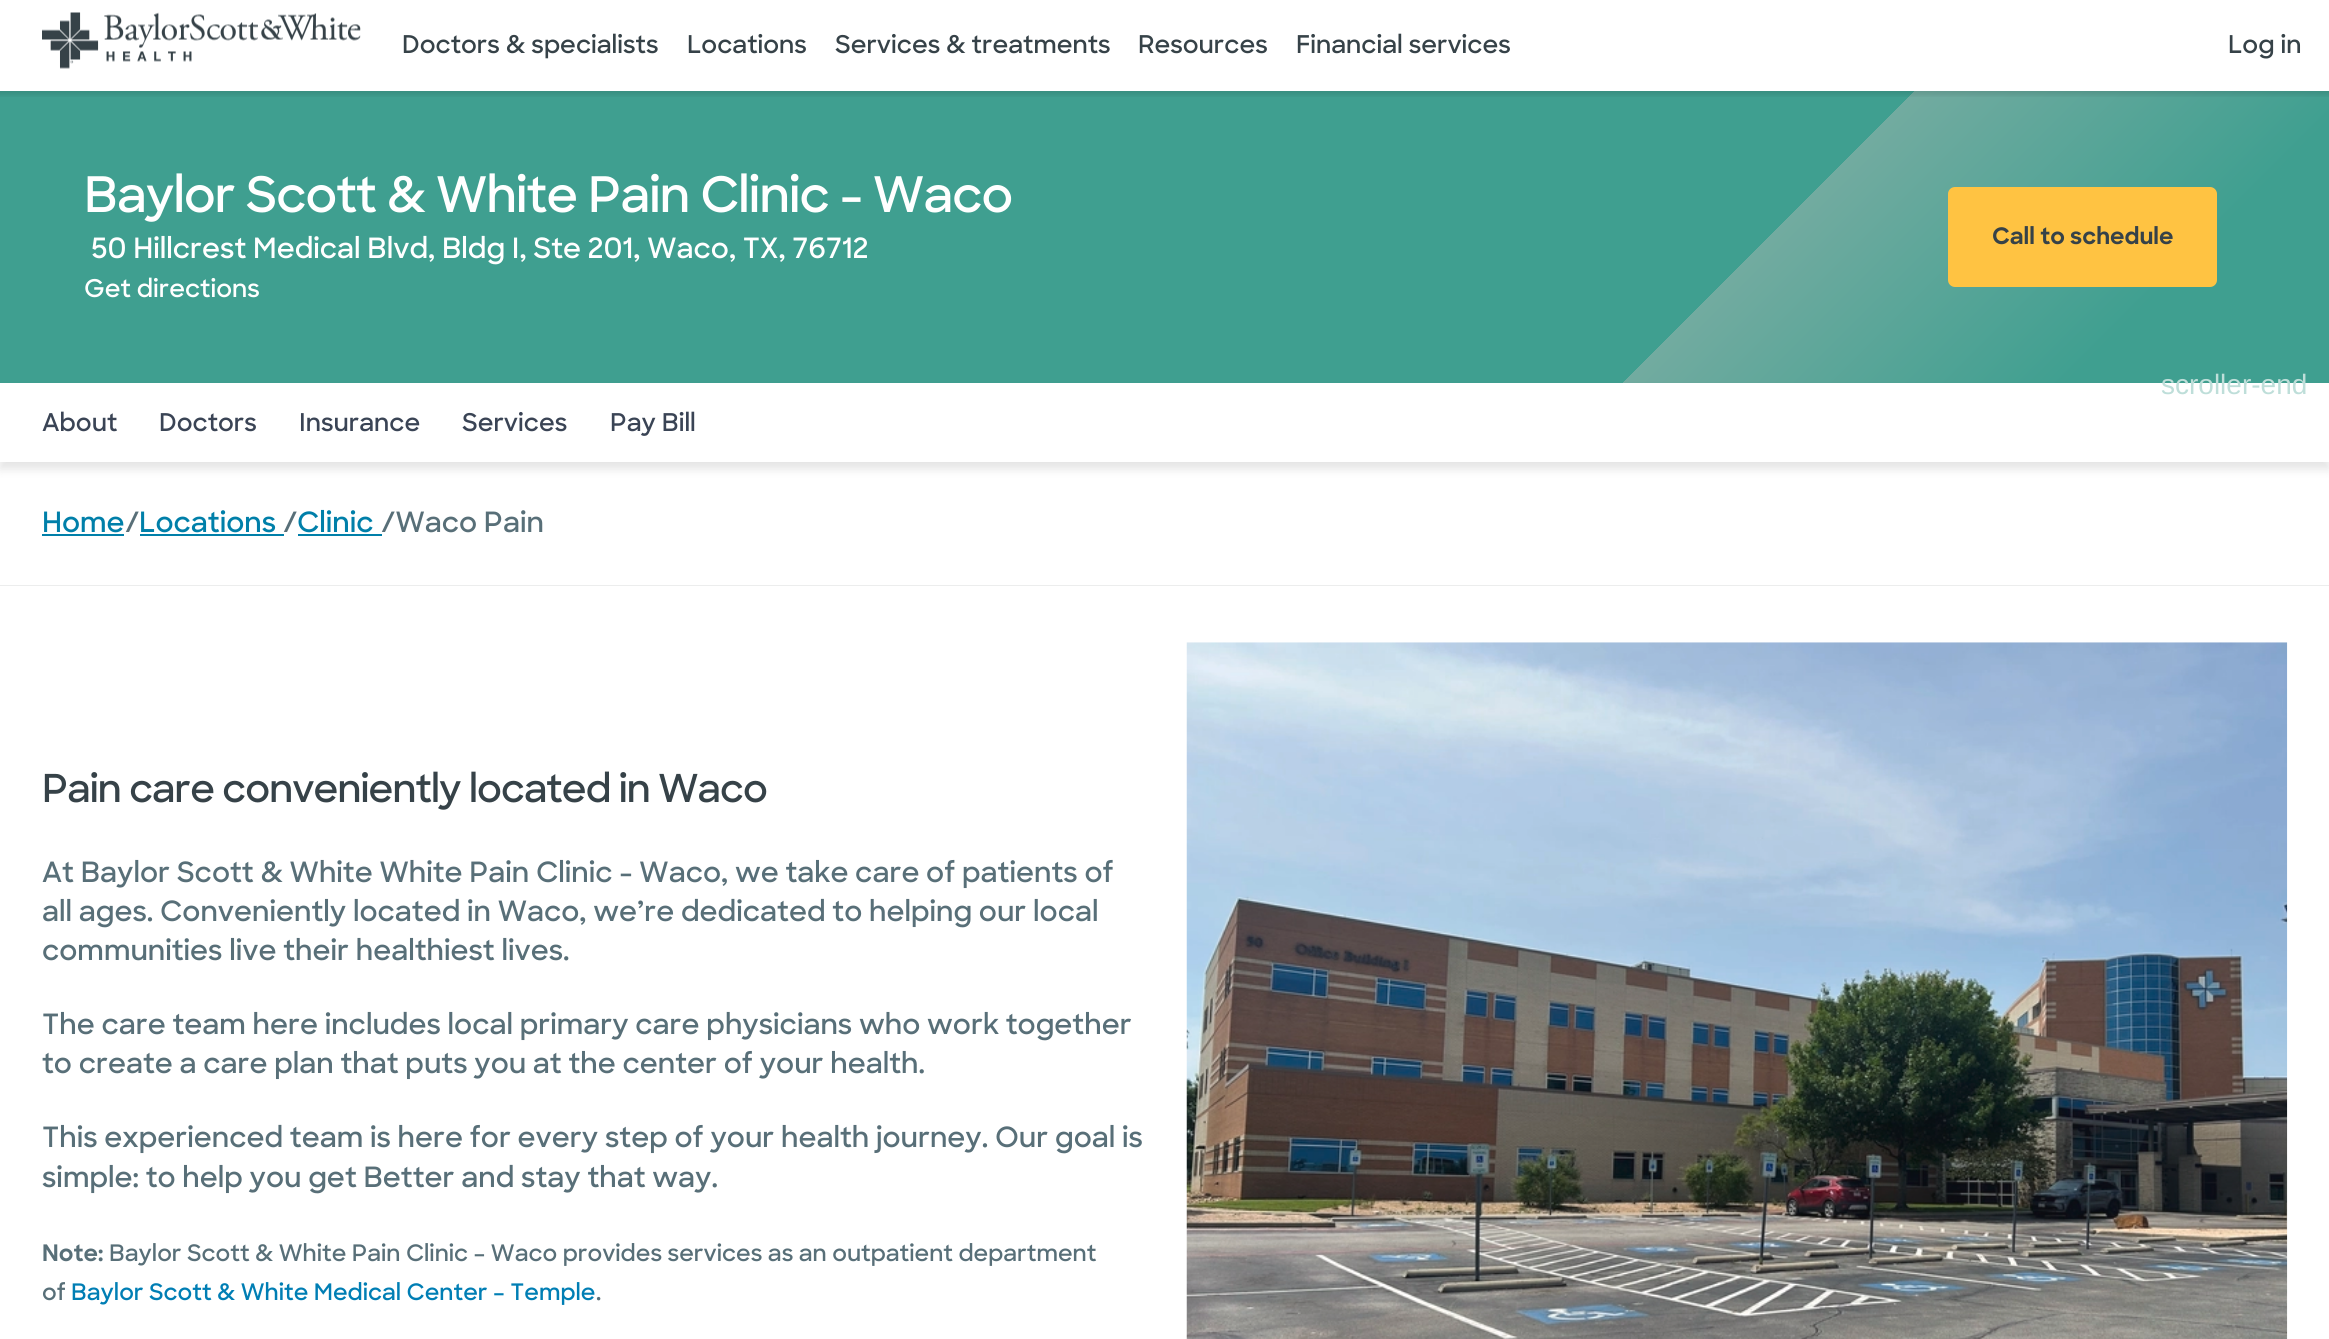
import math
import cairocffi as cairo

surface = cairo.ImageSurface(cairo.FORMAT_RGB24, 2329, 1339)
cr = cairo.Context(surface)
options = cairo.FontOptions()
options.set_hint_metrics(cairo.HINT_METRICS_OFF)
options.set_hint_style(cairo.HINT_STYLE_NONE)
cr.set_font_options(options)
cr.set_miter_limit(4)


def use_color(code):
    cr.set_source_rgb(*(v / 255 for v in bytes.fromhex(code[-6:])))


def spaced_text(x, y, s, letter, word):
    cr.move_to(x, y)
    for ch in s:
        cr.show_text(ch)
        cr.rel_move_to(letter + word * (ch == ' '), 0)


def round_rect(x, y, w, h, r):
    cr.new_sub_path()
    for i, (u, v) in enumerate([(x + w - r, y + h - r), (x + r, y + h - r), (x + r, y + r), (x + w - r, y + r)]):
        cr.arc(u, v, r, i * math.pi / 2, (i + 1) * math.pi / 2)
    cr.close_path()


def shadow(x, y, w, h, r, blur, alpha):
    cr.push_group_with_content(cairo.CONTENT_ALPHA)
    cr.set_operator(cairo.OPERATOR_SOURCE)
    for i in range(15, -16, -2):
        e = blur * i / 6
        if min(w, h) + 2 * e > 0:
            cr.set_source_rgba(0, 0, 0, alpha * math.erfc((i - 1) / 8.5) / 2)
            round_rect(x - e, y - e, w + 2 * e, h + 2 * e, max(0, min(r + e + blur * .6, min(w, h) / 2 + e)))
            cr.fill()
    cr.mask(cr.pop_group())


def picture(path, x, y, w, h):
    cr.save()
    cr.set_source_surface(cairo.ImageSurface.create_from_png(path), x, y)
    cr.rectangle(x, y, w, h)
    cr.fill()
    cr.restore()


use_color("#ffffff")
cr.paint()
gradient = cairo.LinearGradient(509, -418, 1820, 893)
gradient.add_color_stop_rgba(0.73, 0.247, 0.624, 0.565, 1)
gradient.add_color_stop_rgba(0.73, 0.447, 0.671, 0.627, 1)
gradient.add_color_stop_rgba(0.9, 0.247, 0.624, 0.565, 1)
cr.set_source(gradient)
cr.rectangle(0, 91, 2329, 292)
cr.fill()
cr.save()
cr.rectangle(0, 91, 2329, 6)
cr.clip()
use_color("#000000")
shadow(-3, -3, 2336, 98, 0, 2.5, 0.11)
cr.restore()
picture("img1.png", 42, 12, 319, 57)
cr.select_font_face("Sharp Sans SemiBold")
cr.set_font_size(24.5)
use_color("#364248")
cr.move_to(402, 53)
cr.show_text("Doctors & specialists")
cr.move_to(687, 53)
cr.show_text("Locations")
cr.move_to(835, 53)
cr.show_text("Services & treatments")
cr.move_to(1138, 53)
cr.show_text("Resources")
cr.move_to(1296, 53)
cr.show_text("Financial services")
cr.move_to(2228, 53)
cr.show_text("Log in")
use_color("#eceded")
cr.rectangle(0, 585, 2329, 1)
cr.fill()
cr.set_font_size(49)
use_color("#ffffff")
spaced_text(84, 212, "Baylor Scott & White Pain Clinic - Waco", -0.9, 0)
cr.set_font_size(28)
cr.move_to(91, 258)
cr.show_text("50 Hillcrest Medical Blvd, Bldg I, Ste 201, Waco, TX, 76712")
cr.set_font_size(24.5)
cr.move_to(84, 297)
cr.show_text("Get directions")
use_color("#ffc342")
round_rect(1949, 188, 267, 98, 6)
cr.fill_preserve()
cr.stroke()
cr.select_font_face("Sharp Sans", cairo.FONT_SLANT_NORMAL, cairo.FONT_WEIGHT_BOLD)
cr.set_font_size(22.75)
use_color("#364248")
cr.move_to(1992, 244)
cr.show_text("Call to schedule")
use_color("#000000")
shadow(0, 390, 2329, 79, 0, 5, 0.11)
use_color("#ffffff")
cr.rectangle(0, 383, 2329, 79)
cr.fill()
cr.select_font_face("Sharp Sans SemiBold")
cr.set_font_size(24.5)
use_color("#3a4455")
cr.move_to(42, 431)
cr.show_text("About")
cr.move_to(159, 431)
cr.show_text("Doctors")
cr.move_to(299, 431)
cr.show_text("Insurance")
cr.move_to(462, 431)
cr.show_text("Services")
cr.move_to(610, 431)
cr.show_text("Pay Bill")
cr.set_font_size(28)
use_color("#007fa9")
cr.move_to(42, 532)
cr.show_text("Home")
cr.rectangle(42, 534, 82, 2)
cr.fill()
use_color("#586f78")
cr.move_to(125, 532)
cr.show_text("/")
use_color("#007fa9")
cr.move_to(139, 532)
cr.show_text("Locations")
cr.rectangle(140, 534, 144, 2)
cr.fill()
use_color("#586f78")
cr.move_to(283, 532)
cr.show_text("/")
use_color("#007fa9")
cr.move_to(297, 532)
cr.show_text("Clinic")
cr.rectangle(298, 534, 84, 2)
cr.fill()
use_color("#586f78")
cr.move_to(381, 532)
cr.show_text("/Waco Pain")
cr.set_font_size(38.5)
use_color("#364248")
spaced_text(42, 802, "Pain care conveniently located in Waco", -0.9, 0)
cr.set_font_size(28)
use_color("#586f78")
cr.move_to(42, 882)
cr.show_text("At Baylor Scott & White White Pain Clinic - Waco, we take care of patients of")
cr.move_to(42, 921)
cr.show_text("all ages. Conveniently located in Waco, we’re dedicated to helping our local")
cr.move_to(42, 960)
cr.show_text("communities live their healthiest lives.")
cr.move_to(42, 1034)
cr.show_text("The care team here includes local primary care physicians who work together")
cr.move_to(42, 1073)
cr.show_text("to create a care plan that puts you at the center of your health.")
cr.move_to(42, 1147)
cr.show_text("This experienced team is here for every step of your health journey. Our goal is")
cr.move_to(42, 1187)
cr.show_text("simple: to help you get Better and stay that way.")
cr.select_font_face("Sharp Sans", cairo.FONT_SLANT_NORMAL, cairo.FONT_WEIGHT_BOLD)
cr.set_font_size(22.75)
cr.move_to(42, 1261)
cr.show_text("Note:")
cr.select_font_face("Sharp Sans SemiBold")
cr.move_to(109, 1261)
cr.show_text("Baylor Scott & White Pain Clinic – Waco provides services as an outpatient department")
cr.move_to(42, 1300)
cr.show_text("of")
use_color("#007eb4")
cr.move_to(71, 1300)
cr.show_text("Baylor Scott & White Medical Center – Temple")
use_color("#586f78")
cr.move_to(596, 1300)
cr.show_text(".")
picture("img2.png", 1186, 642, 1102, 697)
cr.select_font_face("Liberation Sans")
cr.set_font_size(28)
use_color("#beded9")
cr.move_to(2161, 394)
cr.show_text("scroller-end")
surface.write_to_png("result.png")
